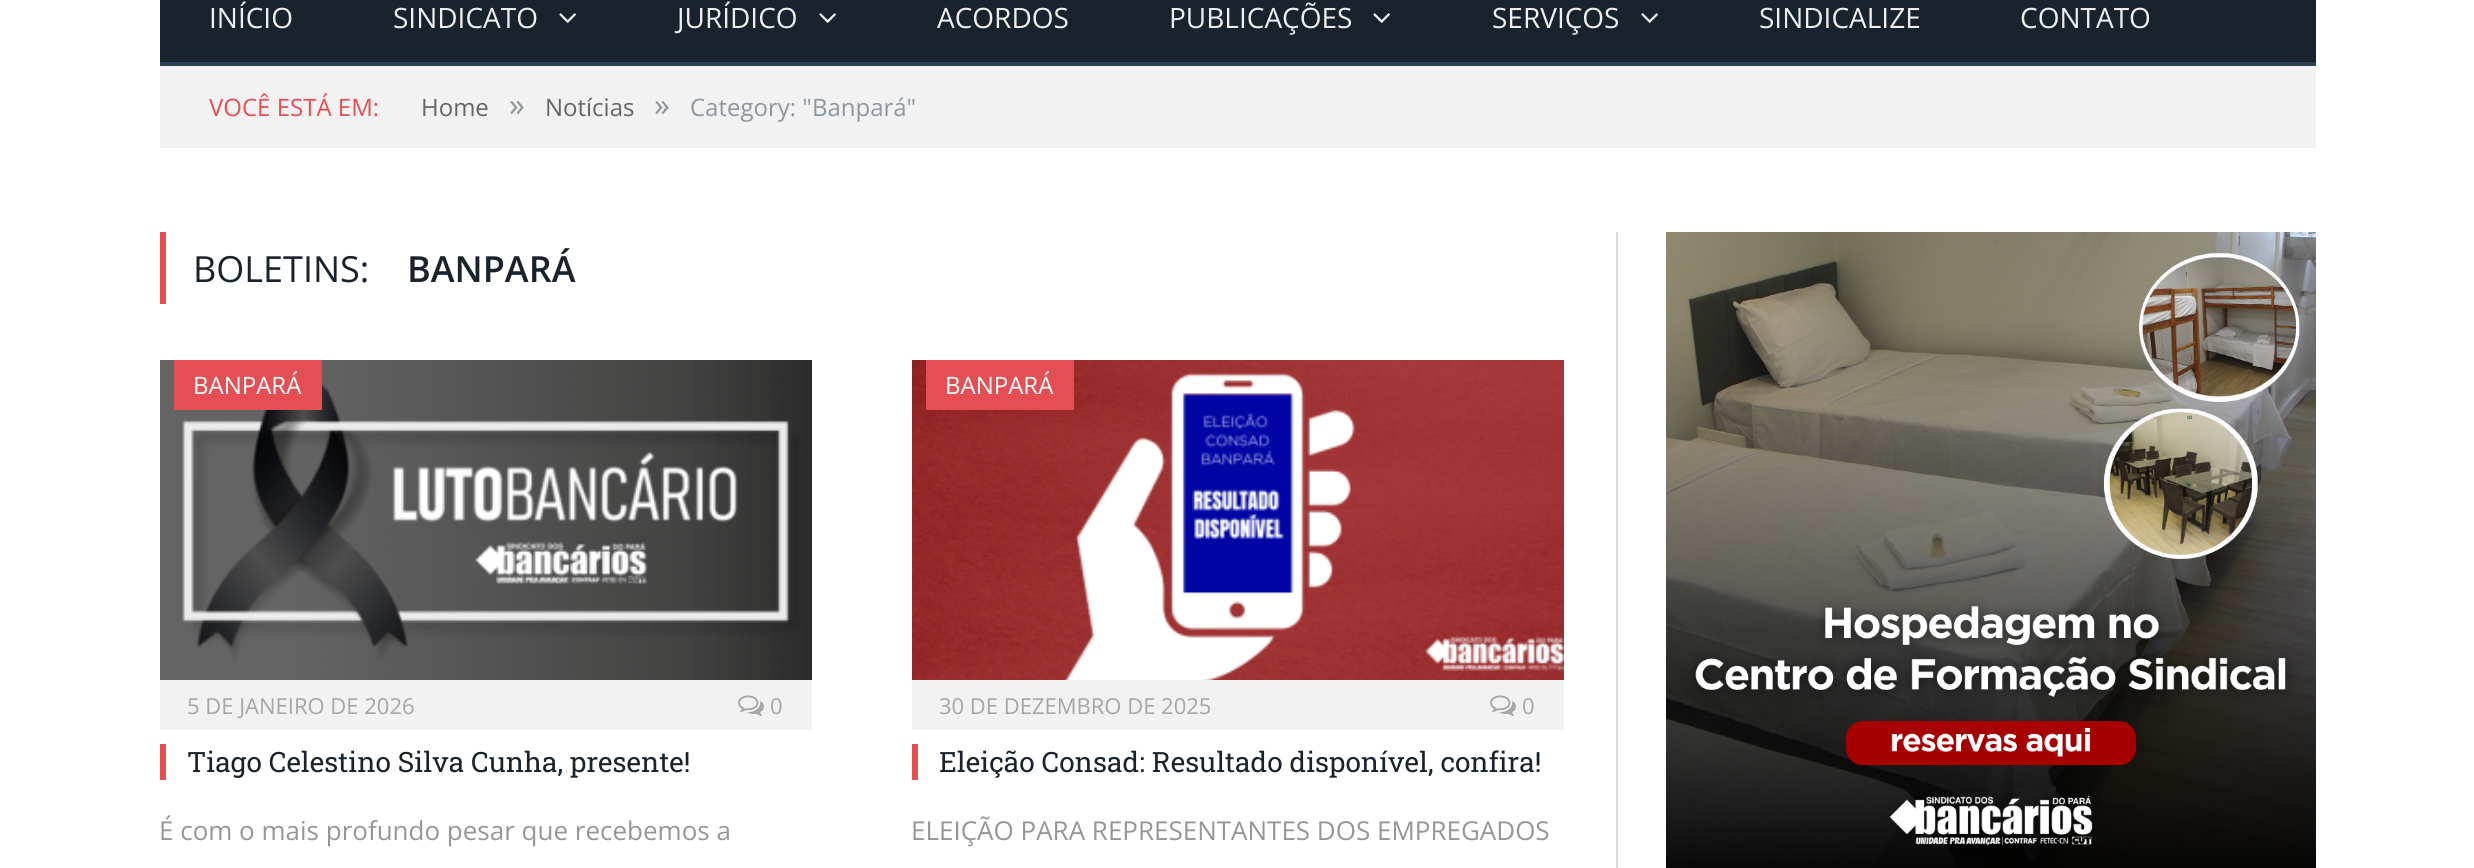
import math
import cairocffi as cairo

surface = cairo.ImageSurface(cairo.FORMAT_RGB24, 2474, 868)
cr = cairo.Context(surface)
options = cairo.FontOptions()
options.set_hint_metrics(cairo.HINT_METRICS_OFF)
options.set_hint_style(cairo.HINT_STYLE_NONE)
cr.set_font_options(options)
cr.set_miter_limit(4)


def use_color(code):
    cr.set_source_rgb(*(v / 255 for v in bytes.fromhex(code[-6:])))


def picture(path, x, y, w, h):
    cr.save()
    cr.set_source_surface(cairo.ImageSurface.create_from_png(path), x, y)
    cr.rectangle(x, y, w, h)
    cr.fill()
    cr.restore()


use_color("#ffffff")
cr.paint()
use_color("#19232d")
cr.rectangle(160, 0, 2156, 62)
cr.fill()
use_color("#2f4154")
cr.rectangle(160, 62, 2156, 4)
cr.fill()
cr.select_font_face("Open Sans")
cr.set_font_size(28)
use_color("#efefef")
cr.move_to(209, 28)
cr.show_text("INÍCIO")
cr.move_to(393, 28)
cr.show_text("SINDICATO")
picture("img1.png", 559, 13, 17, 10)
cr.move_to(677, 28)
cr.show_text("JURÍDICO")
picture("img1.png", 819, 13, 17, 10)
cr.move_to(937, 28)
cr.show_text("ACORDOS")
cr.move_to(1169, 28)
cr.show_text("PUBLICAÇÕES")
picture("img1.png", 1373, 13, 17, 10)
cr.move_to(1492, 28)
cr.show_text("SERVIÇOS")
picture("img1.png", 1641, 13, 17, 10)
cr.move_to(1759, 28)
cr.show_text("SINDICALIZE")
cr.move_to(2020, 28)
cr.show_text("CONTATO")
use_color("#f2f2f2")
cr.rectangle(160, 66, 2156, 82)
cr.fill()
cr.set_font_size(24)
use_color("#e54e53")
cr.move_to(209, 116)
cr.show_text("VOCÊ ESTÁ EM:")
use_color("#656565")
cr.move_to(421, 116)
cr.show_text("Home")
cr.set_font_size(32)
use_color("#8d97a1")
cr.move_to(509, 116)
cr.show_text("»")
cr.set_font_size(24)
use_color("#656565")
cr.move_to(545, 116)
cr.show_text("Notícias")
cr.set_font_size(32)
use_color("#8d97a1")
cr.move_to(654, 116)
cr.show_text("»")
cr.set_font_size(24)
cr.move_to(690, 116)
cr.show_text("Category: \"Banpará\"")
use_color("#e54e53")
cr.rectangle(160, 232, 6, 72)
cr.fill()
cr.set_font_size(36)
use_color("#19232d")
cr.move_to(193, 282)
cr.show_text("BOLETINS:")
cr.select_font_face("Open Sans SemiBold")
cr.move_to(407, 282)
cr.show_text("BANPARÁ")
picture("img2.png", 160, 360, 652, 320)
use_color("#e54e53")
cr.rectangle(174, 360, 148, 50)
cr.fill()
cr.select_font_face("Open Sans")
cr.set_font_size(24)
use_color("#ffffff")
cr.move_to(193, 394)
cr.show_text("BANPARÁ")
use_color("#f2f2f2")
cr.rectangle(160, 680, 652, 50)
cr.fill()
cr.set_font_size(22)
use_color("#a6a6a6")
cr.move_to(187, 714)
cr.show_text("5 DE JANEIRO DE 2026")
picture("img3.png", 738, 695, 26, 21)
cr.move_to(770, 714)
cr.show_text("0")
use_color("#e54e53")
cr.rectangle(160, 744, 6, 36)
cr.fill()
cr.select_font_face("Roboto Slab")
cr.set_font_size(28)
use_color("#19232d")
cr.move_to(187, 772)
cr.show_text("Tiago Celestino Silva Cunha, presente!")
cr.select_font_face("Open Sans")
cr.set_font_size(26)
use_color("#949697")
cr.move_to(159, 840)
cr.show_text("É com o mais profundo pesar que recebemos a")
picture("img4.png", 912, 360, 652, 320)
use_color("#e54e53")
cr.rectangle(926, 360, 148, 50)
cr.fill()
cr.set_font_size(24)
use_color("#ffffff")
cr.move_to(945, 394)
cr.show_text("BANPARÁ")
use_color("#f2f2f2")
cr.rectangle(912, 680, 652, 50)
cr.fill()
cr.set_font_size(22)
use_color("#a6a6a6")
cr.move_to(939, 714)
cr.show_text("30 DE DEZEMBRO DE 2025")
picture("img3.png", 1490, 695, 26, 21)
cr.move_to(1522, 714)
cr.show_text("0")
use_color("#e54e53")
cr.rectangle(912, 744, 6, 36)
cr.fill()
cr.select_font_face("Roboto Slab")
cr.set_font_size(28)
use_color("#19232d")
cr.move_to(939, 772)
cr.show_text("Eleição Consad: Resultado disponível, confira!")
cr.select_font_face("Open Sans")
cr.set_font_size(26)
use_color("#949697")
cr.move_to(911, 840)
cr.show_text("ELEIÇÃO PARA REPRESENTANTES DOS EMPREGADOS")
use_color("#d9d9d9")
cr.rectangle(1616, 232, 2, 636)
cr.fill()
picture("img5.png", 1666, 232, 650, 636)
surface.write_to_png("result.png")
